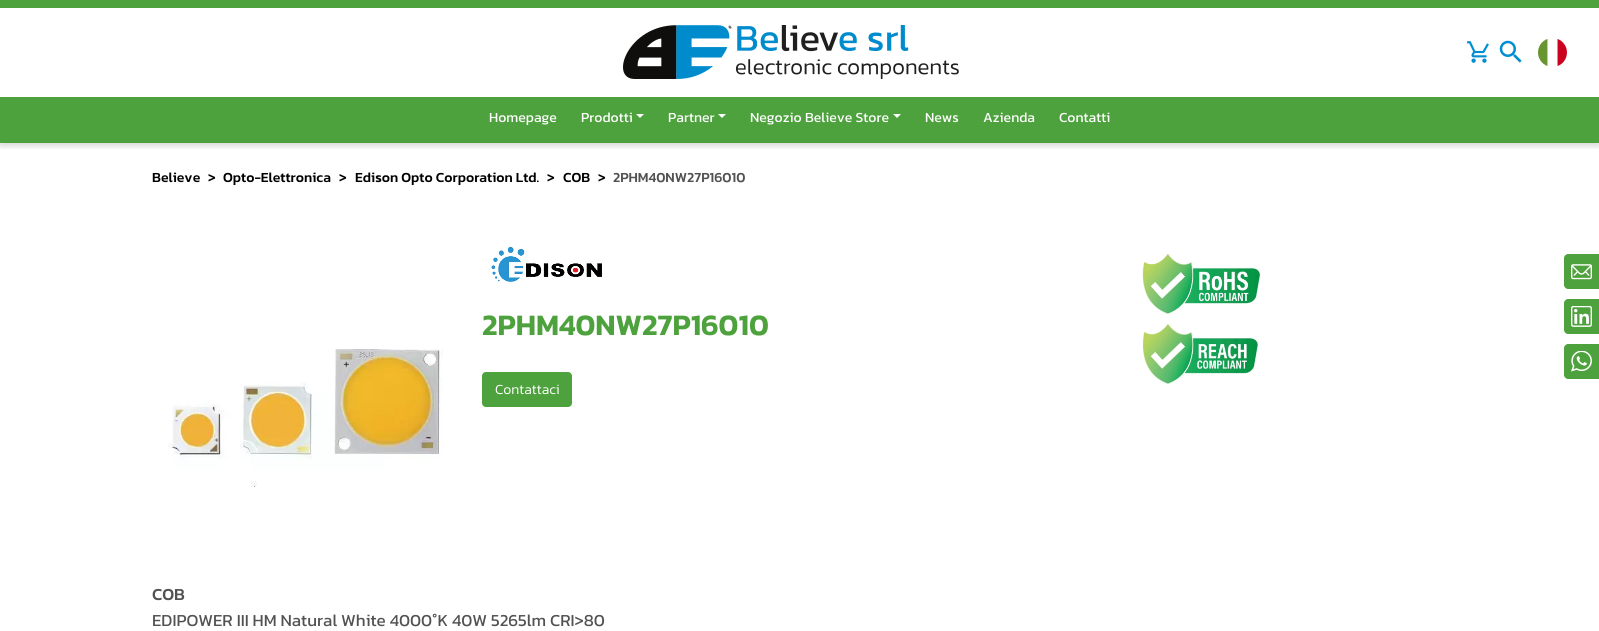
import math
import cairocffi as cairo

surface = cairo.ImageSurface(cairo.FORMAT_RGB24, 1599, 631)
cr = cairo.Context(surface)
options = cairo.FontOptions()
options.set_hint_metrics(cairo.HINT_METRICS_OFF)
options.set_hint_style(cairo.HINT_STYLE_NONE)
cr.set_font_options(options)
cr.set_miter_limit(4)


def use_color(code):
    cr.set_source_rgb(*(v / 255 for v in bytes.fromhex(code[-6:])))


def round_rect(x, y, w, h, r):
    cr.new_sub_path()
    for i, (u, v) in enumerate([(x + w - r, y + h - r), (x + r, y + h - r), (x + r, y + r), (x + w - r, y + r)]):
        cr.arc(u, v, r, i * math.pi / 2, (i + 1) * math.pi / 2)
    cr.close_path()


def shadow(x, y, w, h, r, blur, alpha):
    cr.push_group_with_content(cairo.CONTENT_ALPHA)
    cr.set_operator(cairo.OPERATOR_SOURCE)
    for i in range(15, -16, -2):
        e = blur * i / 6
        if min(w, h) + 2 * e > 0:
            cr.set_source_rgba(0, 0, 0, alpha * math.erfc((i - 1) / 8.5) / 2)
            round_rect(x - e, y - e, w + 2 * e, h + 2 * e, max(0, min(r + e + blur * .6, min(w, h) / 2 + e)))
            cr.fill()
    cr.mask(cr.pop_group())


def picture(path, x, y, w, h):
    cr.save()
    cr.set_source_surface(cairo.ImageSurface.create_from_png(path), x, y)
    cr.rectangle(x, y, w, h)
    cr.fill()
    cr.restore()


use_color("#ffffff")
cr.paint()
cr.save()
cr.rectangle(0, 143, 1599, 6)
cr.clip()
use_color("#000000")
shadow(0, 3, 1599, 143, 0, 3, 0.16)
cr.restore()
use_color("#4ea23d")
cr.rectangle(0, 0, 1599, 8)
cr.fill()
picture("img1.png", 623, 25, 109, 54)
picture("img2.png", 736, 25, 223, 54)
picture("img3.png", 1467, 41, 22, 22)
picture("img4.png", 1499, 40, 23, 23)
picture("img5.png", 1538, 39, 29, 27)
cr.rectangle(0, 97, 1599, 46)
cr.fill()
cr.select_font_face("Kanit")
cr.set_font_size(14)
use_color("#ffffff")
cr.move_to(489, 122)
cr.show_text("Homepage")
cr.move_to(581, 122)
cr.show_text("Prodotti")
cr.new_path()
cr.move_to(636, 114)
cr.line_to(644, 114)
cr.line_to(640, 118)
cr.close_path()
cr.fill()
cr.move_to(668, 122)
cr.show_text("Partner")
cr.new_path()
cr.move_to(718, 114)
cr.line_to(726, 114)
cr.line_to(722, 118)
cr.close_path()
cr.fill()
cr.move_to(750, 122)
cr.show_text("Negozio Believe Store")
cr.new_path()
cr.move_to(893, 114)
cr.line_to(901, 114)
cr.line_to(897, 118)
cr.close_path()
cr.fill()
cr.move_to(925, 122)
cr.show_text("News")
cr.move_to(983, 122)
cr.show_text("Azienda")
cr.move_to(1059, 122)
cr.show_text("Contatti")
cr.select_font_face("Kanit Medium")
use_color("#000000")
cr.move_to(152, 182)
cr.show_text("Believe")
cr.move_to(208, 182)
cr.show_text(">")
cr.move_to(223, 182)
cr.show_text("Opto-Elettronica")
cr.move_to(339, 182)
cr.show_text(">")
cr.move_to(355, 182)
cr.show_text("Edison Opto Corporation Ltd.")
cr.move_to(547, 182)
cr.show_text(">")
cr.move_to(563, 182)
cr.show_text("COB")
cr.move_to(598, 182)
cr.show_text(">")
use_color("#525252")
cr.move_to(613, 182)
cr.show_text("2PHM40NW27P16010")
picture("img6.png", 168, 349, 275, 138)
picture("img7.png", 491, 246, 111, 36)
cr.select_font_face("Kanit SemiBold")
cr.set_font_size(30)
use_color("#4ea23d")
cr.move_to(482, 335)
cr.show_text("2PHM40NW27P16010")
round_rect(482.5, 372.5, 89, 34, 3.5)
cr.fill_preserve()
cr.set_line_width(1)
cr.stroke()
cr.select_font_face("Kanit Light")
cr.set_font_size(14)
use_color("#ffffff")
cr.move_to(495, 394)
cr.show_text("Contattaci")
picture("img8.png", 1142, 253, 119, 131)
cr.select_font_face("Kanit Medium")
cr.set_font_size(17)
use_color("#525252")
cr.move_to(152, 600)
cr.show_text("COB")
cr.select_font_face("Kanit")
cr.move_to(152, 626)
cr.show_text("EDIPOWER III HM Natural White 4000°K 40W 5265lm CRI>80")
use_color("#4ea23d")
cr.new_path()
cr.move_to(1568, 254)
cr.line_to(1599, 254)
cr.line_to(1599, 289)
cr.line_to(1568, 289)
cr.curve_to(1566, 289, 1564, 287, 1564, 285)
cr.line_to(1564, 258)
cr.curve_to(1564, 256, 1566, 254, 1568, 254)
cr.close_path()
cr.fill()
picture("img9.png", 1571, 264, 21, 16)
cr.new_path()
cr.move_to(1568, 299)
cr.line_to(1599, 299)
cr.line_to(1599, 334)
cr.line_to(1568, 334)
cr.curve_to(1566, 334, 1564, 332, 1564, 330)
cr.line_to(1564, 303)
cr.curve_to(1564, 301, 1566, 299, 1568, 299)
cr.close_path()
cr.fill()
picture("img10.png", 1571, 306, 21, 21)
cr.new_path()
cr.move_to(1568, 344)
cr.line_to(1599, 344)
cr.line_to(1599, 379)
cr.line_to(1568, 379)
cr.curve_to(1566, 379, 1564, 377, 1564, 375)
cr.line_to(1564, 348)
cr.curve_to(1564, 346, 1566, 344, 1568, 344)
cr.close_path()
cr.fill()
picture("img11.png", 1571, 351, 21, 21)
surface.write_to_png("result.png")
